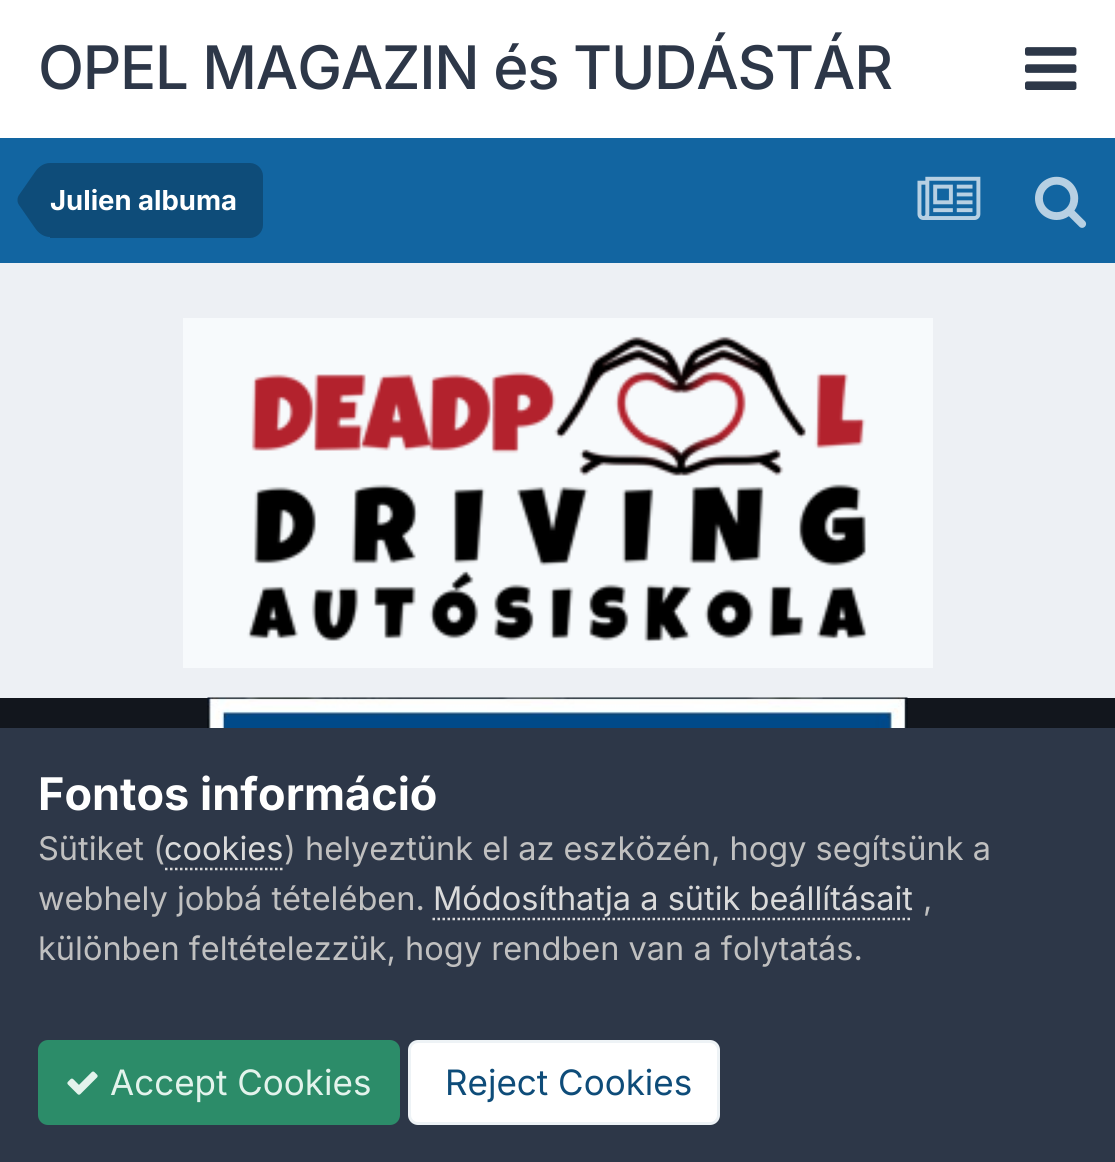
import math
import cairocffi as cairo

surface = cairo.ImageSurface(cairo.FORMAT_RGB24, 1115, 1162)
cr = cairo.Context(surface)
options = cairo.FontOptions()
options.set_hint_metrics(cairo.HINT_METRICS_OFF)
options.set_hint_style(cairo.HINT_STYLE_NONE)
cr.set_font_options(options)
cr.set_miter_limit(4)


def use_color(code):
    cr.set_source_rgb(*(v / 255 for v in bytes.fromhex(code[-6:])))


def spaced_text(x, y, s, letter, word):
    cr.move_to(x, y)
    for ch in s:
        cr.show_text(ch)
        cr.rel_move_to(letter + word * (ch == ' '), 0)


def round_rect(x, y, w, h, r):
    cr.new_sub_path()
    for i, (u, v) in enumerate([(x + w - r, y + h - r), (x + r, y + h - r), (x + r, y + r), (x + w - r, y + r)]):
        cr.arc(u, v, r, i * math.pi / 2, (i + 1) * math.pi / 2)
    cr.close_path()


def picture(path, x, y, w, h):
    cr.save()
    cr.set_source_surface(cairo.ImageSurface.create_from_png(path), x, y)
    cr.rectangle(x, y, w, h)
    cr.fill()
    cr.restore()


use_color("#edf0f4")
cr.paint()
use_color("#ffffff")
cr.rectangle(0, 0, 1115, 138)
cr.fill()
cr.select_font_face("Inter Medium")
cr.set_font_size(60)
use_color("#2d3748")
spaced_text(38, 89, "OPEL MAGAZIN és TUDÁSTÁR", -1.25, 0)
picture("img1.png", 1025, 47, 52, 43)
use_color("#1265a1")
cr.rectangle(0, 138, 1115, 125)
cr.fill()
use_color("#0e4c79")
cr.new_path()
cr.move_to(50, 163)
cr.line_to(250, 163)
cr.curve_to(257, 163, 263, 169, 263, 176)
cr.line_to(263, 225)
cr.curve_to(263, 232, 257, 238, 250, 238)
cr.line_to(50, 238)
cr.close_path()
cr.fill()
cr.new_path()
cr.move_to(50, 200)
cr.line_to(50, 237)
cr.curve_to(44.5, 237, 39, 234, 35, 228)
cr.line_to(19, 205)
cr.curve_to(18, 203.5, 17.5, 202, 17.5, 200)
cr.close_path()
cr.fill()
cr.new_path()
cr.move_to(50, 200)
cr.line_to(17.5, 200)
cr.curve_to(17.5, 198, 18, 196.5, 19, 195)
cr.line_to(35, 172)
cr.curve_to(39, 166, 44.5, 163, 50, 163)
cr.close_path()
cr.fill()
cr.select_font_face("Inter", cairo.FONT_SLANT_NORMAL, cairo.FONT_WEIGHT_BOLD)
cr.set_font_size(27.5)
use_color("#ffffff")
cr.move_to(50, 210)
cr.show_text("Julien albuma")
picture("img2.png", 917, 176, 64, 44)
picture("img3.png", 1035, 176, 52, 52)
use_color("#f7fafc")
cr.rectangle(183, 318, 750, 350)
cr.fill()
picture("img4.png", 247, 336, 621, 307)
use_color("#12161d")
cr.rectangle(0, 698, 1115, 30)
cr.fill()
picture("img5.png", 207, 697, 701, 31)
use_color("#2d3748")
cr.rectangle(0, 728, 1115, 434)
cr.fill()
cr.set_font_size(45)
use_color("#ffffff")
cr.move_to(38, 810)
cr.show_text("Fontos információ")
cr.select_font_face("Inter")
cr.set_font_size(32.5)
use_color("#c0c0c0")
cr.move_to(38, 860)
cr.show_text("Sütiket (")
use_color("#dadada")
cr.move_to(164, 860)
cr.show_text("cookies")
cr.new_path()
cr.move_to(165, 869)
cr.line_to(285, 869)
cr.set_line_width(2.5)
cr.set_dash([2.5, 2.5])
cr.stroke()
use_color("#c0c0c0")
cr.move_to(284, 860)
cr.show_text(") helyeztünk el az eszközén, hogy segítsünk a")
cr.move_to(38, 910)
cr.show_text("webhely jobbá tételében.")
use_color("#dadada")
cr.move_to(433, 910)
cr.show_text("Módosíthatja a sütik beállításait")
cr.new_path()
cr.move_to(432.5, 919)
cr.line_to(912.5, 919)
cr.stroke()
use_color("#c0c0c0")
cr.move_to(923, 910)
cr.show_text(",")
cr.move_to(38, 960)
cr.show_text("különben feltételezzük, hogy rendben van a folytatás.")
use_color("#2c8c69")
round_rect(38, 1040, 362, 85, 10)
cr.fill()
picture("img6.png", 67, 1071, 31, 24)
cr.set_font_size(35)
use_color("#e3f3ec")
cr.move_to(110, 1095)
cr.show_text("Accept Cookies")
use_color("#ffffff")
round_rect(408, 1040, 312, 85, 10)
cr.fill()
round_rect(409.5, 1041.5, 309, 82, 8.5)
cr.set_source_rgba(0.055, 0.298, 0.475, 0.07)
cr.set_line_width(3)
cr.set_dash([])
cr.stroke()
use_color("#0e4c79")
cr.move_to(445, 1095)
cr.show_text("Reject Cookies")
surface.write_to_png("result.png")
